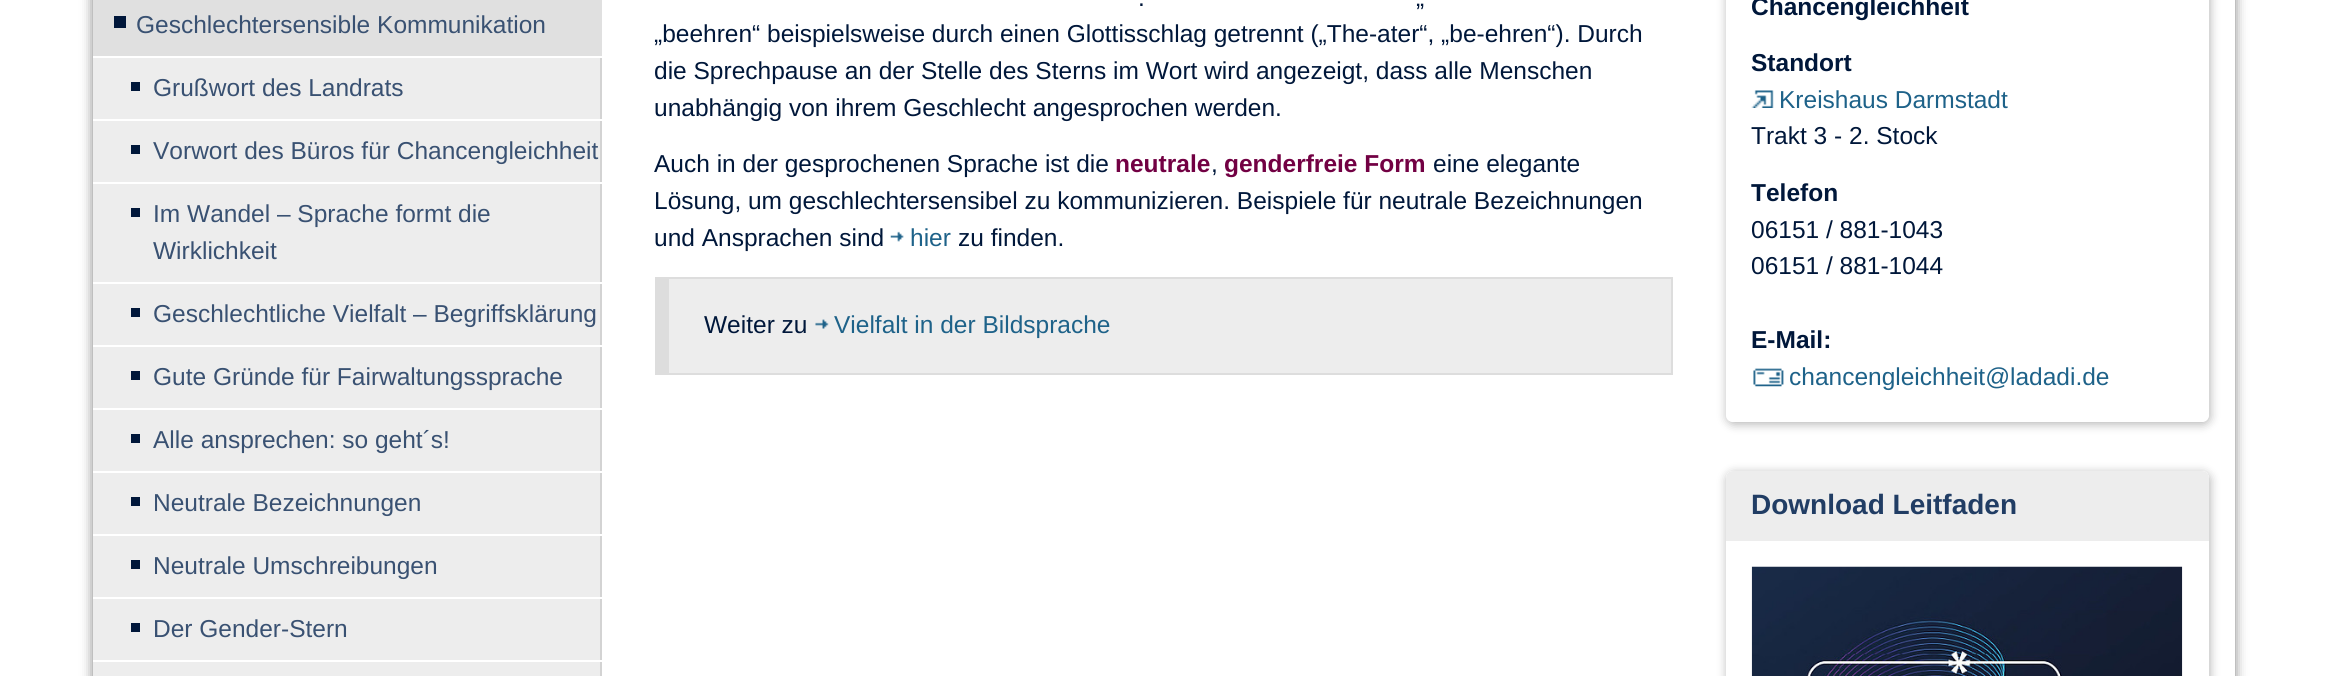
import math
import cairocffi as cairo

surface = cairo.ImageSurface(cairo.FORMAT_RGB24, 2325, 676)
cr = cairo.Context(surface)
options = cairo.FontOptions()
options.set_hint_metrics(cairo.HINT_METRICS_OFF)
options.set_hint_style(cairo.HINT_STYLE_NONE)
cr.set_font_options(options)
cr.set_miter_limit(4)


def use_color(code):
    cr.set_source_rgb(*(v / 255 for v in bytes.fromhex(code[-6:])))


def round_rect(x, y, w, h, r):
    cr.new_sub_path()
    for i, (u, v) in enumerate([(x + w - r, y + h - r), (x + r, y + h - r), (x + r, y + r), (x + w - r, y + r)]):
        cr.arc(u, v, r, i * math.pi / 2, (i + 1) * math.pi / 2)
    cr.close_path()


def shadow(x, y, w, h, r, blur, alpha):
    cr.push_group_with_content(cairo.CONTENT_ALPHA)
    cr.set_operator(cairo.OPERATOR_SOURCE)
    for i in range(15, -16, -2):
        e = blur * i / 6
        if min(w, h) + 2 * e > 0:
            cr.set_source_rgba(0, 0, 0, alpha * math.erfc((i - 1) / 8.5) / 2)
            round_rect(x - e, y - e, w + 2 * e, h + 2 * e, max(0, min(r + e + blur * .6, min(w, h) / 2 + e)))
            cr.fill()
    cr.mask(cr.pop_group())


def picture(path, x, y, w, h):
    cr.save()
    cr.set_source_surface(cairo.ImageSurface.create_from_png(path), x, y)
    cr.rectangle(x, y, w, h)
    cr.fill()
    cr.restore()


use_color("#ffffff")
cr.paint()
cr.save()
cr.set_fill_rule(cairo.FILL_RULE_EVEN_ODD)
cr.new_path()
cr.move_to(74, 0)
cr.line_to(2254, 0)
cr.line_to(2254, 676)
cr.line_to(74, 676)
cr.close_path()
cr.move_to(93, -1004)
cr.line_to(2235, -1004)
cr.line_to(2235, 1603)
cr.line_to(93, 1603)
cr.close_path()
cr.clip()
use_color("#000000")
shadow(93, -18, 2142, 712, 0, 6, 0.5)
cr.restore()
use_color("#e0e0e0")
cr.rectangle(93, 0, 509, 56)
cr.fill()
use_color("#00173a")
cr.rectangle(114, 16, 12, 12)
cr.fill()
cr.select_font_face("Liberation Sans")
cr.set_font_size(24.5)
use_color("#395172")
cr.move_to(136, 33)
cr.show_text("Geschlechtersensible Kommunikation")
use_color("#ededed")
cr.rectangle(93, 58, 507, 61)
cr.fill()
use_color("#d3d3d3")
cr.rectangle(600, 58, 2, 618)
cr.fill()
use_color("#ffffff")
cr.rectangle(600, 119, 2, 2)
cr.fill()
use_color("#00173a")
cr.rectangle(131, 82, 9, 9)
cr.fill()
use_color("#395172")
cr.move_to(153, 96)
cr.show_text("Grußwort des Landrats")
use_color("#ededed")
cr.rectangle(93, 121, 507, 61)
cr.fill()
use_color("#ffffff")
cr.rectangle(600, 182, 2, 2)
cr.fill()
use_color("#00173a")
cr.rectangle(131, 145, 9, 9)
cr.fill()
use_color("#395172")
cr.move_to(153, 159)
cr.show_text("Vorwort des Büros für Chancengleichheit")
use_color("#ededed")
cr.rectangle(93, 184, 507, 98)
cr.fill()
use_color("#ffffff")
cr.rectangle(600, 282, 2, 2)
cr.fill()
use_color("#00173a")
cr.rectangle(131, 208, 9, 9)
cr.fill()
use_color("#395172")
cr.move_to(153, 222)
cr.show_text("Im Wandel – Sprache formt die")
cr.move_to(153, 259)
cr.show_text("Wirklichkeit")
use_color("#ededed")
cr.rectangle(93, 284, 507, 61)
cr.fill()
use_color("#ffffff")
cr.rectangle(600, 345, 2, 2)
cr.fill()
use_color("#00173a")
cr.rectangle(131, 308, 9, 9)
cr.fill()
use_color("#395172")
cr.move_to(153, 322)
cr.show_text("Geschlechtliche Vielfalt – Begriffsklärung")
use_color("#ededed")
cr.rectangle(93, 347, 507, 61)
cr.fill()
use_color("#ffffff")
cr.rectangle(600, 408, 2, 2)
cr.fill()
use_color("#00173a")
cr.rectangle(131, 371, 9, 9)
cr.fill()
use_color("#395172")
cr.move_to(153, 385)
cr.show_text("Gute Gründe für Fairwaltungssprache")
use_color("#ededed")
cr.rectangle(93, 410, 507, 61)
cr.fill()
use_color("#ffffff")
cr.rectangle(600, 471, 2, 2)
cr.fill()
use_color("#00173a")
cr.rectangle(131, 434, 9, 9)
cr.fill()
use_color("#395172")
cr.move_to(153, 448)
cr.show_text("Alle ansprechen: so geht´s!")
use_color("#ededed")
cr.rectangle(93, 473, 507, 61)
cr.fill()
use_color("#ffffff")
cr.rectangle(600, 534, 2, 2)
cr.fill()
use_color("#00173a")
cr.rectangle(131, 497, 9, 9)
cr.fill()
use_color("#395172")
cr.move_to(153, 511)
cr.show_text("Neutrale Bezeichnungen")
use_color("#ededed")
cr.rectangle(93, 536, 507, 61)
cr.fill()
use_color("#ffffff")
cr.rectangle(600, 597, 2, 2)
cr.fill()
use_color("#00173a")
cr.rectangle(131, 560, 9, 9)
cr.fill()
use_color("#395172")
cr.move_to(153, 574)
cr.show_text("Neutrale Umschreibungen")
use_color("#ededed")
cr.rectangle(93, 599, 507, 61)
cr.fill()
use_color("#ffffff")
cr.rectangle(600, 660, 2, 2)
cr.fill()
use_color("#00173a")
cr.rectangle(131, 623, 9, 9)
cr.fill()
use_color("#395172")
cr.move_to(153, 637)
cr.show_text("Der Gender-Stern")
use_color("#ededed")
cr.rectangle(93, 662, 507, 14)
cr.fill()
use_color("#00173a")
cr.move_to(1138, 6)
cr.show_text(".")
cr.move_to(1416, 6)
cr.show_text("„")
cr.move_to(654, 42)
cr.show_text("„beehren“ beispielsweise durch einen Glottisschlag getrennt („The-ater“, „be-ehren“). Durch")
cr.move_to(654, 79)
cr.show_text("die Sprechpause an der Stelle des Sterns im Wort wird angezeigt, dass alle Menschen")
cr.move_to(654, 116)
cr.show_text("unabhängig von ihrem Geschlecht angesprochen werden.")
cr.move_to(654, 172)
cr.show_text("Auch in der gesprochenen Sprache ist die")
cr.select_font_face("Liberation Sans", cairo.FONT_SLANT_NORMAL, cairo.FONT_WEIGHT_BOLD)
use_color("#720043")
cr.move_to(1115, 172)
cr.show_text("neutrale")
cr.select_font_face("Liberation Sans")
use_color("#00173a")
cr.move_to(1211, 172)
cr.show_text(",")
cr.select_font_face("Liberation Sans", cairo.FONT_SLANT_NORMAL, cairo.FONT_WEIGHT_BOLD)
use_color("#720043")
cr.move_to(1224, 172)
cr.show_text("genderfreie Form")
cr.select_font_face("Liberation Sans")
use_color("#00173a")
cr.move_to(1433, 172)
cr.show_text("eine elegante")
cr.move_to(654, 209)
cr.show_text("Lösung, um geschlechtersensibel zu kommunizieren. Beispiele für neutrale Bezeichnungen")
cr.move_to(654, 246)
cr.show_text("und Ansprachen sind")
picture("img1.png", 890, 231, 14, 11)
use_color("#1e6289")
cr.move_to(910, 246)
cr.show_text("hier")
use_color("#00173a")
cr.move_to(958, 246)
cr.show_text("zu finden.")
use_color("#ededed")
cr.rectangle(669, 279, 1002, 94)
cr.fill()
use_color("#dddddd")
cr.rectangle(669, 277, 1004, 2)
cr.fill()
cr.rectangle(1671, 277, 2, 98)
cr.fill()
cr.rectangle(669, 373, 1004, 2)
cr.fill()
cr.rectangle(655, 277, 14, 98)
cr.fill()
use_color("#00173a")
cr.move_to(704, 333)
cr.show_text("Weiter zu")
picture("img2.png", 815, 319, 14, 10)
use_color("#1e6289")
cr.move_to(834, 333)
cr.show_text("Vielfalt in der Bildsprache")
cr.save()
cr.set_fill_rule(cairo.FILL_RULE_EVEN_ODD)
cr.new_path()
cr.move_to(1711, 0)
cr.line_to(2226, 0)
cr.line_to(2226, 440)
cr.line_to(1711, 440)
cr.close_path()
cr.move_to(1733, -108)
cr.line_to(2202, -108)
cr.curve_to(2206, -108, 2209, -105, 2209, -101)
cr.line_to(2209, 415)
cr.curve_to(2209, 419, 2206, 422, 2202, 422)
cr.line_to(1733, 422)
cr.curve_to(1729, 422, 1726, 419, 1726, 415)
cr.line_to(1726, -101)
cr.curve_to(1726, -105, 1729, -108, 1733, -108)
cr.close_path()
cr.clip()
use_color("#000000")
shadow(1727, -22, 483, 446, 7, 5, 0.3)
cr.restore()
cr.select_font_face("Liberation Sans", cairo.FONT_SLANT_NORMAL, cairo.FONT_WEIGHT_BOLD)
use_color("#00173a")
cr.move_to(1751, 15)
cr.show_text("Chancengleichheit")
cr.move_to(1751, 71)
cr.show_text("Standort")
picture("img3.png", 1751, 90, 23, 18)
cr.select_font_face("Liberation Sans")
use_color("#1e6289")
cr.move_to(1779, 108)
cr.show_text("Kreishaus Darmstadt")
use_color("#00173a")
cr.move_to(1751, 144)
cr.show_text("Trakt 3 - 2. Stock")
cr.select_font_face("Liberation Sans", cairo.FONT_SLANT_NORMAL, cairo.FONT_WEIGHT_BOLD)
cr.move_to(1751, 201)
cr.show_text("Telefon")
cr.select_font_face("Liberation Sans")
cr.move_to(1751, 238)
cr.show_text("06151 / 881-1043")
cr.move_to(1751, 274)
cr.show_text("06151 / 881-1044")
cr.select_font_face("Liberation Sans", cairo.FONT_SLANT_NORMAL, cairo.FONT_WEIGHT_BOLD)
cr.move_to(1751, 348)
cr.show_text("E-Mail:")
picture("img4.png", 1753, 368, 31, 19)
cr.select_font_face("Liberation Sans")
use_color("#1e6289")
cr.move_to(1789, 385)
cr.show_text("chancengleichheit@ladadi.de")
cr.save()
cr.set_fill_rule(cairo.FILL_RULE_EVEN_ODD)
cr.new_path()
cr.move_to(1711, 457)
cr.line_to(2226, 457)
cr.line_to(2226, 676)
cr.line_to(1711, 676)
cr.close_path()
cr.move_to(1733, 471)
cr.line_to(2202, 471)
cr.curve_to(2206, 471, 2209, 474, 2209, 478)
cr.line_to(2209, 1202)
cr.curve_to(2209, 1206, 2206, 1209, 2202, 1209)
cr.line_to(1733, 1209)
cr.curve_to(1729, 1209, 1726, 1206, 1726, 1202)
cr.line_to(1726, 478)
cr.curve_to(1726, 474, 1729, 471, 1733, 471)
cr.close_path()
cr.clip()
use_color("#000000")
shadow(1727, 473, 483, 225, 7, 5, 0.3)
cr.restore()
use_color("#ededed")
cr.new_path()
cr.move_to(1733, 471)
cr.line_to(2202, 471)
cr.curve_to(2206, 471, 2209, 474, 2209, 478)
cr.line_to(2209, 541)
cr.line_to(1726, 541)
cr.line_to(1726, 478)
cr.curve_to(1726, 474, 1729, 471, 1733, 471)
cr.close_path()
cr.fill()
cr.select_font_face("Liberation Sans", cairo.FONT_SLANT_NORMAL, cairo.FONT_WEIGHT_BOLD)
cr.set_font_size(28)
use_color("#213d64")
cr.move_to(1751, 514)
cr.show_text("Download Leitfaden")
picture("img5.png", 1751, 566, 432, 110)
surface.write_to_png("result.png")
